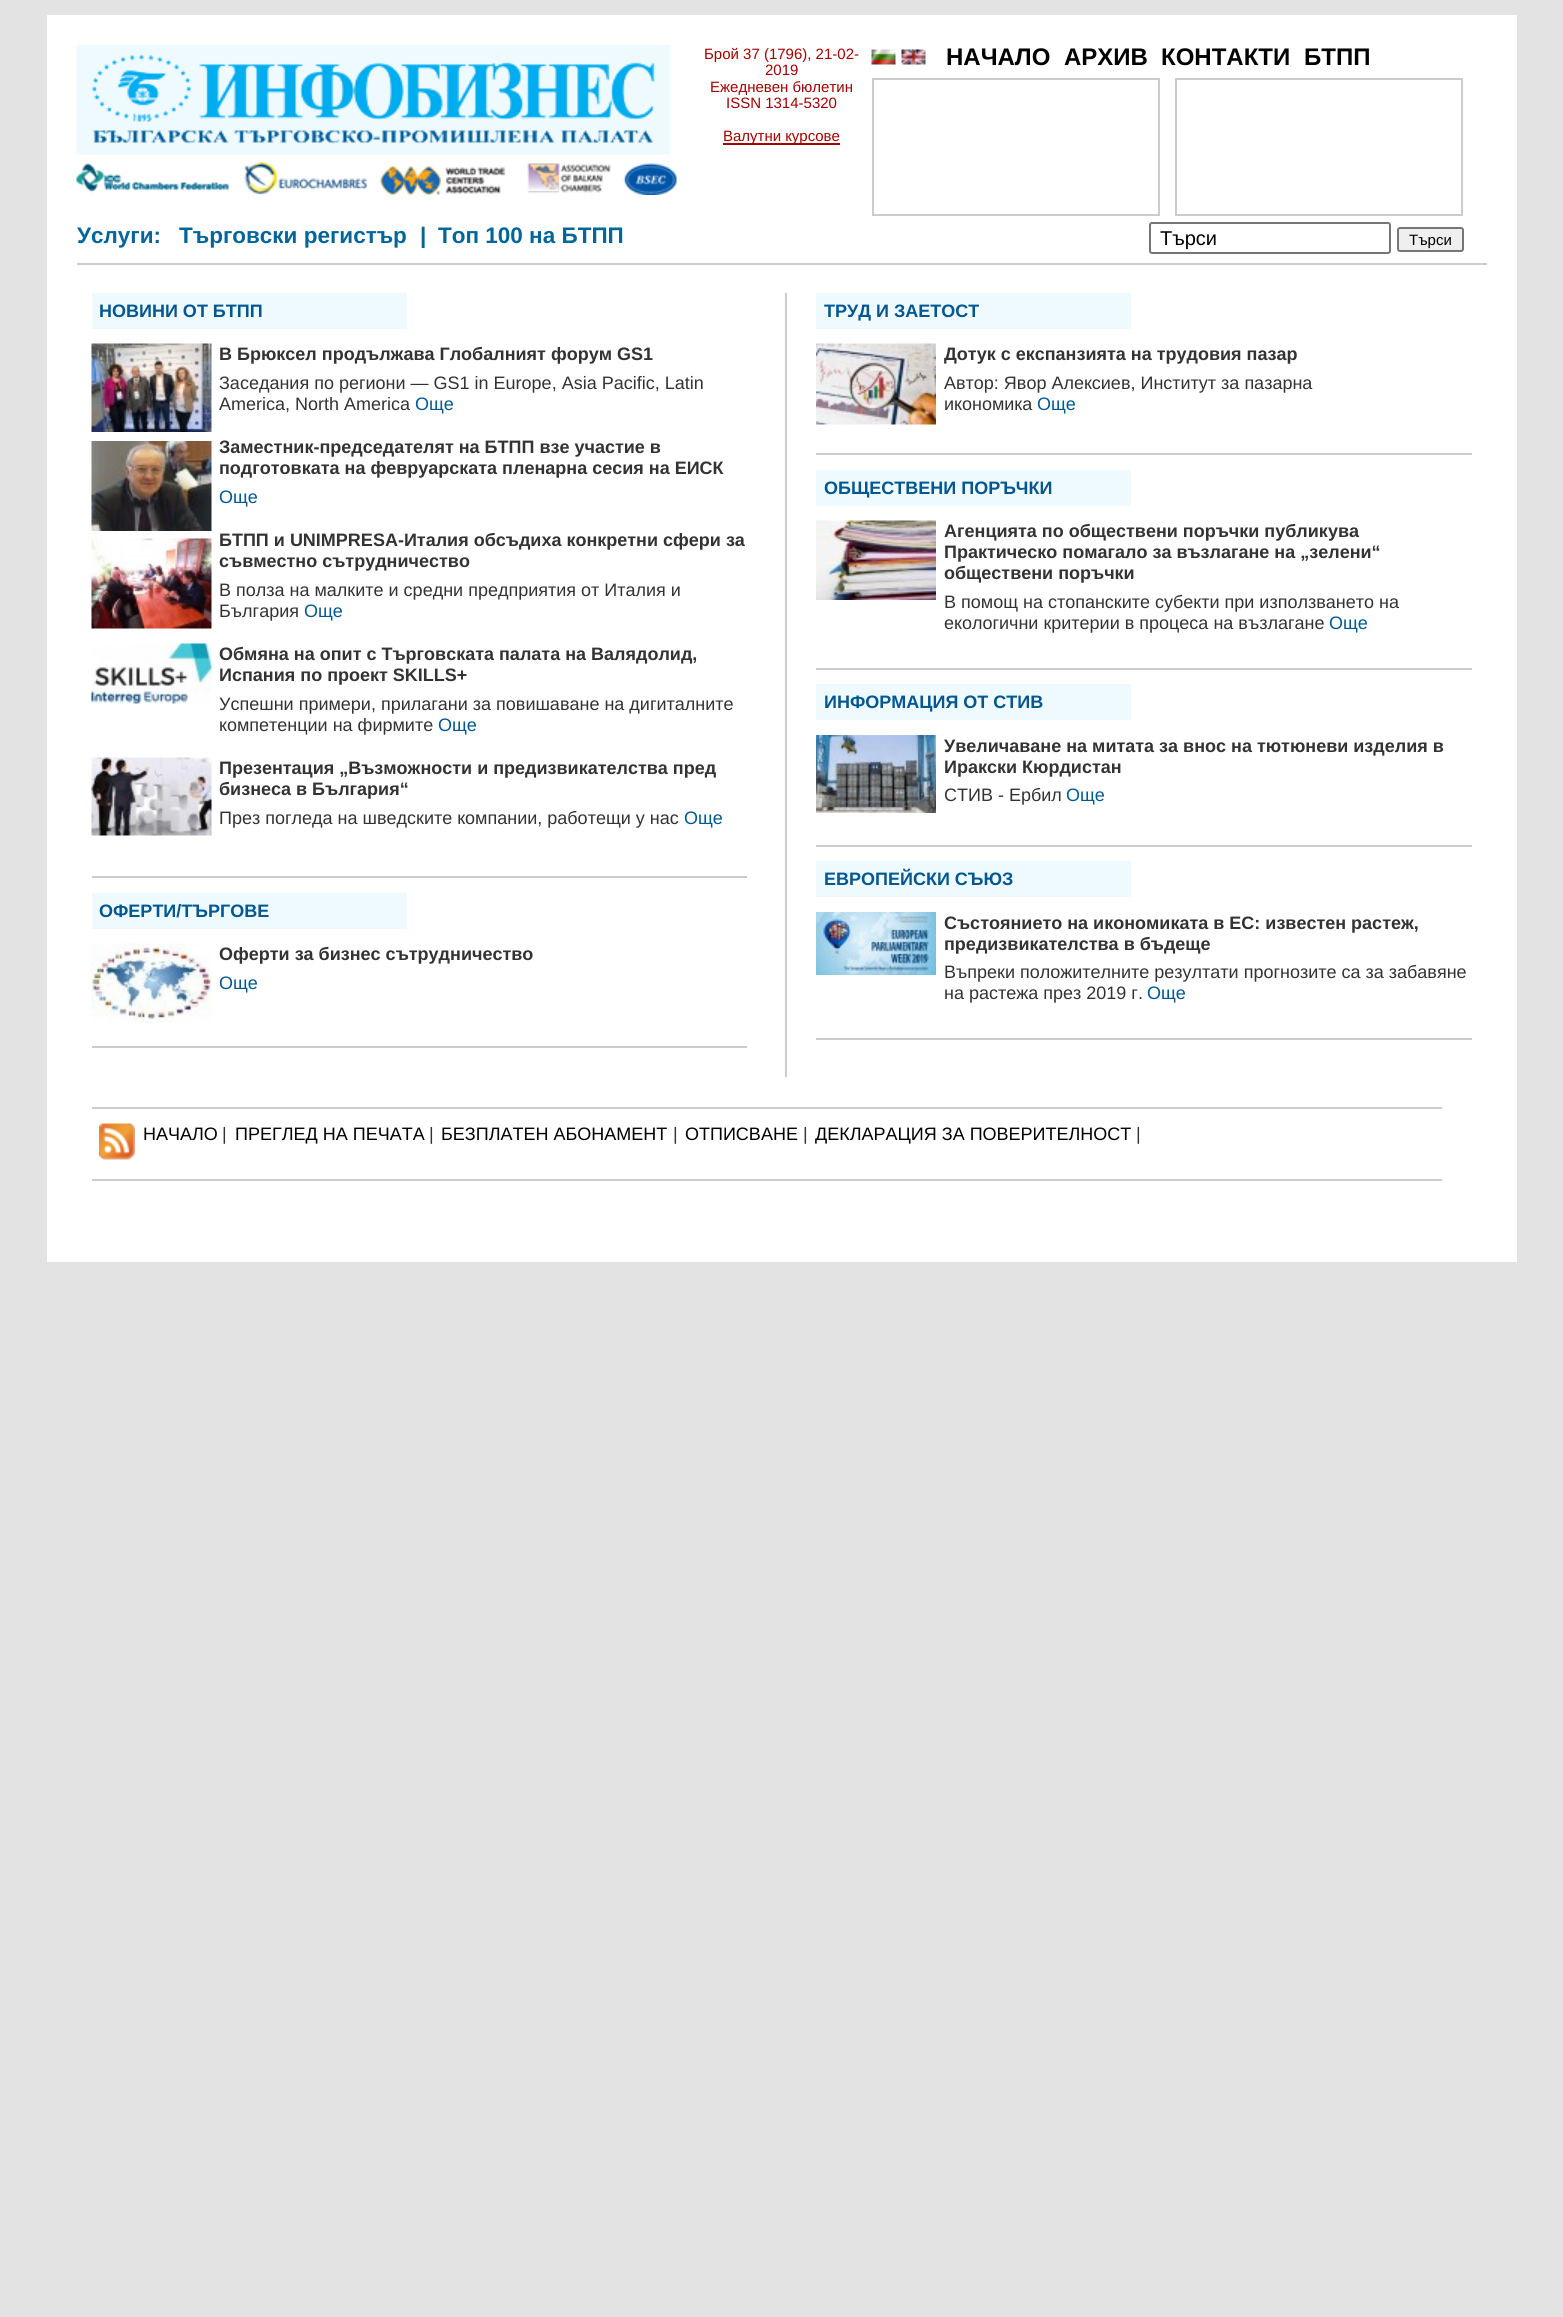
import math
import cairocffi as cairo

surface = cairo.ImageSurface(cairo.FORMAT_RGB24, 1563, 2317)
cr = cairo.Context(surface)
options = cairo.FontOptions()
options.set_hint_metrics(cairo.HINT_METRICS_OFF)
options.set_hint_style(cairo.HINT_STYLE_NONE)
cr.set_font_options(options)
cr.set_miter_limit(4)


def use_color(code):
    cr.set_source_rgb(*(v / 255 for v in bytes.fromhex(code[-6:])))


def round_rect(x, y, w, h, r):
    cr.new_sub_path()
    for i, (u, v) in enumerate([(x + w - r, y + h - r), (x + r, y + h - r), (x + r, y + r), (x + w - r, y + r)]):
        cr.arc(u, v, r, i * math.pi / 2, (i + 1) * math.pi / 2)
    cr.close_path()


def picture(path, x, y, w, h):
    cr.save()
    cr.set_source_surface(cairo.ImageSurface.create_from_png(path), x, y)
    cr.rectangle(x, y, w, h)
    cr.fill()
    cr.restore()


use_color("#e3e3e3")
cr.paint()
use_color("#ffffff")
cr.rectangle(47, 15, 1470, 1247)
cr.fill()
use_color("#cccccc")
cr.rectangle(77, 263, 1410, 2)
cr.fill()
picture("img1.png", 76, 45, 595, 110)
picture("img2.png", 76, 162, 601, 33)
cr.select_font_face("Liberation Sans")
cr.set_font_size(15)
use_color("#a40000")
cr.move_to(704, 59)
cr.show_text("Брой 37 (1796), 21-02-")
cr.move_to(765, 75)
cr.show_text("2019")
cr.move_to(710, 92)
cr.show_text("Ежедневен бюлетин")
cr.move_to(726, 108)
cr.show_text("ISSN 1314-5320")
cr.rectangle(723, 143, 117, 2)
cr.fill()
cr.move_to(723, 141)
cr.show_text("Валутни курсове")
picture("img3.png", 871, 49, 25, 16)
picture("img4.png", 901, 49, 25, 16)
cr.select_font_face("Liberation Sans", cairo.FONT_SLANT_NORMAL, cairo.FONT_WEIGHT_BOLD)
cr.set_font_size(24)
use_color("#000000")
cr.move_to(946, 65)
cr.show_text("НАЧАЛО")
cr.move_to(1064, 65)
cr.show_text("АРХИВ")
cr.move_to(1161, 65)
cr.show_text("КОНТАКТИ")
cr.move_to(1304, 65)
cr.show_text("БТПП")
cr.rectangle(873, 79, 286, 136)
use_color("#cccccc")
cr.stroke()
cr.rectangle(1176, 79, 286, 136)
cr.stroke()
cr.set_font_size(22.5)
use_color("#006699")
cr.move_to(77, 243)
cr.show_text("Услуги:")
cr.move_to(179, 243)
cr.show_text("Търговски регистър")
cr.move_to(420, 243)
cr.show_text("|")
cr.move_to(438, 243)
cr.show_text("Топ 100 на БТПП")
round_rect(1150, 223, 240, 30, 2)
use_color("#767676")
cr.stroke()
cr.select_font_face("Liberation Sans")
cr.set_font_size(20)
use_color("#000000")
cr.move_to(1160, 245)
cr.show_text("Търси")
use_color("#efefef")
round_rect(1398, 228, 65, 23, 2)
cr.fill_preserve()
use_color("#767676")
cr.stroke()
cr.set_font_size(15)
use_color("#000000")
cr.move_to(1409, 245)
cr.show_text("Търси")
use_color("#cccccc")
cr.rectangle(785, 293, 2, 784)
cr.fill()
cr.rectangle(92, 876, 655, 2)
cr.fill()
use_color("#effaff")
cr.rectangle(92, 293, 315, 36)
cr.fill()
cr.select_font_face("Liberation Sans", cairo.FONT_SLANT_NORMAL, cairo.FONT_WEIGHT_BOLD)
cr.set_font_size(18)
use_color("#005791")
cr.move_to(99, 317)
cr.show_text("НОВИНИ ОТ БТПП")
picture("img5.png", 91, 343, 121, 89)
use_color("#333333")
cr.move_to(219, 360)
cr.show_text("В Брюксел продължава Глобалният форум GS1")
cr.select_font_face("Liberation Sans")
cr.move_to(219, 389)
cr.show_text("Заседания по региони — GS1 in Europe, Asia Pacific, Latin")
cr.move_to(219, 410)
cr.show_text("America, North America")
use_color("#005791")
cr.move_to(415, 410)
cr.show_text("Още")
picture("img6.png", 91, 441, 121, 90)
cr.select_font_face("Liberation Sans", cairo.FONT_SLANT_NORMAL, cairo.FONT_WEIGHT_BOLD)
use_color("#333333")
cr.move_to(219, 453)
cr.show_text("Заместник-председателят на БТПП взе участие в")
cr.move_to(219, 474)
cr.show_text("подготовката на февруарската пленарна сесия на ЕИСК")
cr.select_font_face("Liberation Sans")
use_color("#005791")
cr.move_to(219, 503)
cr.show_text("Още")
picture("img7.png", 91, 538, 121, 91)
cr.select_font_face("Liberation Sans", cairo.FONT_SLANT_NORMAL, cairo.FONT_WEIGHT_BOLD)
use_color("#333333")
cr.move_to(219, 546)
cr.show_text("БТПП и UNIMPRESA-Италия обсъдиха конкретни сфери за")
cr.move_to(219, 567)
cr.show_text("съвместно сътрудничество")
cr.select_font_face("Liberation Sans")
cr.move_to(219, 596)
cr.show_text("В полза на малките и средни предприятия от Италия и")
cr.move_to(219, 617)
cr.show_text("България")
use_color("#005791")
cr.move_to(304, 617)
cr.show_text("Още")
picture("img8.png", 91, 643, 121, 61)
cr.select_font_face("Liberation Sans", cairo.FONT_SLANT_NORMAL, cairo.FONT_WEIGHT_BOLD)
use_color("#333333")
cr.move_to(219, 660)
cr.show_text("Обмяна на опит с Търговската палата на Валядолид,")
cr.move_to(219, 681)
cr.show_text("Испания по проект SKILLS+")
cr.select_font_face("Liberation Sans")
cr.move_to(219, 710)
cr.show_text("Успешни примери, прилагани за повишаване на дигиталните")
cr.move_to(219, 731)
cr.show_text("компетенции на фирмите")
use_color("#005791")
cr.move_to(438, 731)
cr.show_text("Още")
picture("img9.png", 91, 757, 121, 79)
cr.select_font_face("Liberation Sans", cairo.FONT_SLANT_NORMAL, cairo.FONT_WEIGHT_BOLD)
use_color("#333333")
cr.move_to(219, 774)
cr.show_text("Презентация „Възможности и предизвикателства пред")
cr.move_to(219, 795)
cr.show_text("бизнеса в България“")
cr.select_font_face("Liberation Sans")
cr.move_to(219, 824)
cr.show_text("През погледа на шведските компании, работещи у нас")
use_color("#005791")
cr.move_to(684, 824)
cr.show_text("Още")
use_color("#cccccc")
cr.rectangle(92, 1046, 655, 2)
cr.fill()
use_color("#effaff")
cr.rectangle(92, 893, 315, 36)
cr.fill()
cr.select_font_face("Liberation Sans", cairo.FONT_SLANT_NORMAL, cairo.FONT_WEIGHT_BOLD)
use_color("#005791")
cr.move_to(99, 917)
cr.show_text("ОФЕРТИ/ТЪРГОВЕ")
picture("img10.png", 91, 943, 121, 80)
use_color("#333333")
cr.move_to(219, 960)
cr.show_text("Оферти за бизнес сътрудничество")
cr.select_font_face("Liberation Sans")
use_color("#005791")
cr.move_to(219, 989)
cr.show_text("Още")
use_color("#cccccc")
cr.rectangle(816, 453, 656, 2)
cr.fill()
use_color("#effaff")
cr.rectangle(816, 293, 315, 36)
cr.fill()
cr.select_font_face("Liberation Sans", cairo.FONT_SLANT_NORMAL, cairo.FONT_WEIGHT_BOLD)
use_color("#005791")
cr.move_to(824, 317)
cr.show_text("ТРУД И ЗАЕТОСТ")
picture("img11.png", 816, 343, 120, 82)
use_color("#333333")
cr.move_to(944, 360)
cr.show_text("Дотук с експанзията на трудовия пазар")
cr.select_font_face("Liberation Sans")
cr.move_to(944, 389)
cr.show_text("Автор: Явор Алексиев, Институт за пазарна")
cr.move_to(944, 410)
cr.show_text("икономика")
use_color("#005791")
cr.move_to(1037, 410)
cr.show_text("Още")
use_color("#cccccc")
cr.rectangle(816, 668, 656, 2)
cr.fill()
use_color("#effaff")
cr.rectangle(816, 470, 315, 36)
cr.fill()
cr.select_font_face("Liberation Sans", cairo.FONT_SLANT_NORMAL, cairo.FONT_WEIGHT_BOLD)
use_color("#005791")
cr.move_to(824, 494)
cr.show_text("ОБЩЕСТВЕНИ ПОРЪЧКИ")
picture("img12.png", 816, 520, 120, 80)
use_color("#333333")
cr.move_to(944, 537)
cr.show_text("Агенцията по обществени поръчки публикува")
cr.move_to(944, 558)
cr.show_text("Практическо помагало за възлагане на „зелени“")
cr.move_to(944, 579)
cr.show_text("обществени поръчки")
cr.select_font_face("Liberation Sans")
cr.move_to(944, 608)
cr.show_text("В помощ на стопанските субекти при използването на")
cr.move_to(944, 629)
cr.show_text("екологични критерии в процеса на възлагане")
use_color("#005791")
cr.move_to(1329, 629)
cr.show_text("Още")
use_color("#cccccc")
cr.rectangle(816, 845, 656, 2)
cr.fill()
use_color("#effaff")
cr.rectangle(816, 684, 315, 36)
cr.fill()
cr.select_font_face("Liberation Sans", cairo.FONT_SLANT_NORMAL, cairo.FONT_WEIGHT_BOLD)
use_color("#005791")
cr.move_to(824, 708)
cr.show_text("ИНФОРМАЦИЯ ОТ СТИВ")
picture("img13.png", 816, 735, 120, 78)
use_color("#333333")
cr.move_to(944, 752)
cr.show_text("Увеличаване на митата за внос на тютюневи изделия в")
cr.move_to(944, 773)
cr.show_text("Иракски Кюрдистан")
cr.select_font_face("Liberation Sans")
cr.move_to(944, 801)
cr.show_text("СТИВ - Ербил")
use_color("#005791")
cr.move_to(1066, 801)
cr.show_text("Още")
use_color("#cccccc")
cr.rectangle(816, 1038, 656, 2)
cr.fill()
use_color("#effaff")
cr.rectangle(816, 861, 315, 36)
cr.fill()
cr.select_font_face("Liberation Sans", cairo.FONT_SLANT_NORMAL, cairo.FONT_WEIGHT_BOLD)
use_color("#005791")
cr.move_to(824, 885)
cr.show_text("ЕВРОПЕЙСКИ СЪЮЗ")
picture("img14.png", 816, 912, 120, 63)
use_color("#333333")
cr.move_to(944, 929)
cr.show_text("Състоянието на икономиката в ЕС: известен растеж,")
cr.move_to(944, 950)
cr.show_text("предизвикателства в бъдеще")
cr.select_font_face("Liberation Sans")
cr.move_to(944, 978)
cr.show_text("Въпреки положителните резултати прогнозите са за забавяне")
cr.move_to(944, 999)
cr.show_text("на растежа през 2019 г.")
use_color("#005791")
cr.move_to(1147, 999)
cr.show_text("Още")
use_color("#cccccc")
cr.rectangle(92, 1107, 1350, 2)
cr.fill()
cr.rectangle(92, 1179, 1350, 2)
cr.fill()
picture("img15.png", 99, 1123, 36, 37)
use_color("#000000")
cr.move_to(143, 1140)
cr.show_text("НАЧАЛО")
use_color("#333333")
cr.move_to(222, 1140)
cr.show_text("|")
use_color("#000000")
cr.move_to(235, 1140)
cr.show_text("ПРЕГЛЕД НА ПЕЧАТА")
use_color("#333333")
cr.move_to(429, 1140)
cr.show_text("|")
use_color("#000000")
cr.move_to(441, 1140)
cr.show_text("БЕЗПЛАТЕН AБОНАМЕНТ")
use_color("#333333")
cr.move_to(673, 1140)
cr.show_text("|")
use_color("#000000")
cr.move_to(685, 1140)
cr.show_text("ОТПИСВАНЕ")
use_color("#333333")
cr.move_to(803, 1140)
cr.show_text("|")
use_color("#000000")
cr.move_to(815, 1140)
cr.show_text("ДЕКЛАРАЦИЯ ЗА ПОВЕРИТЕЛНОСT")
use_color("#333333")
cr.move_to(1136, 1140)
cr.show_text("|")
surface.write_to_png("result.png")
